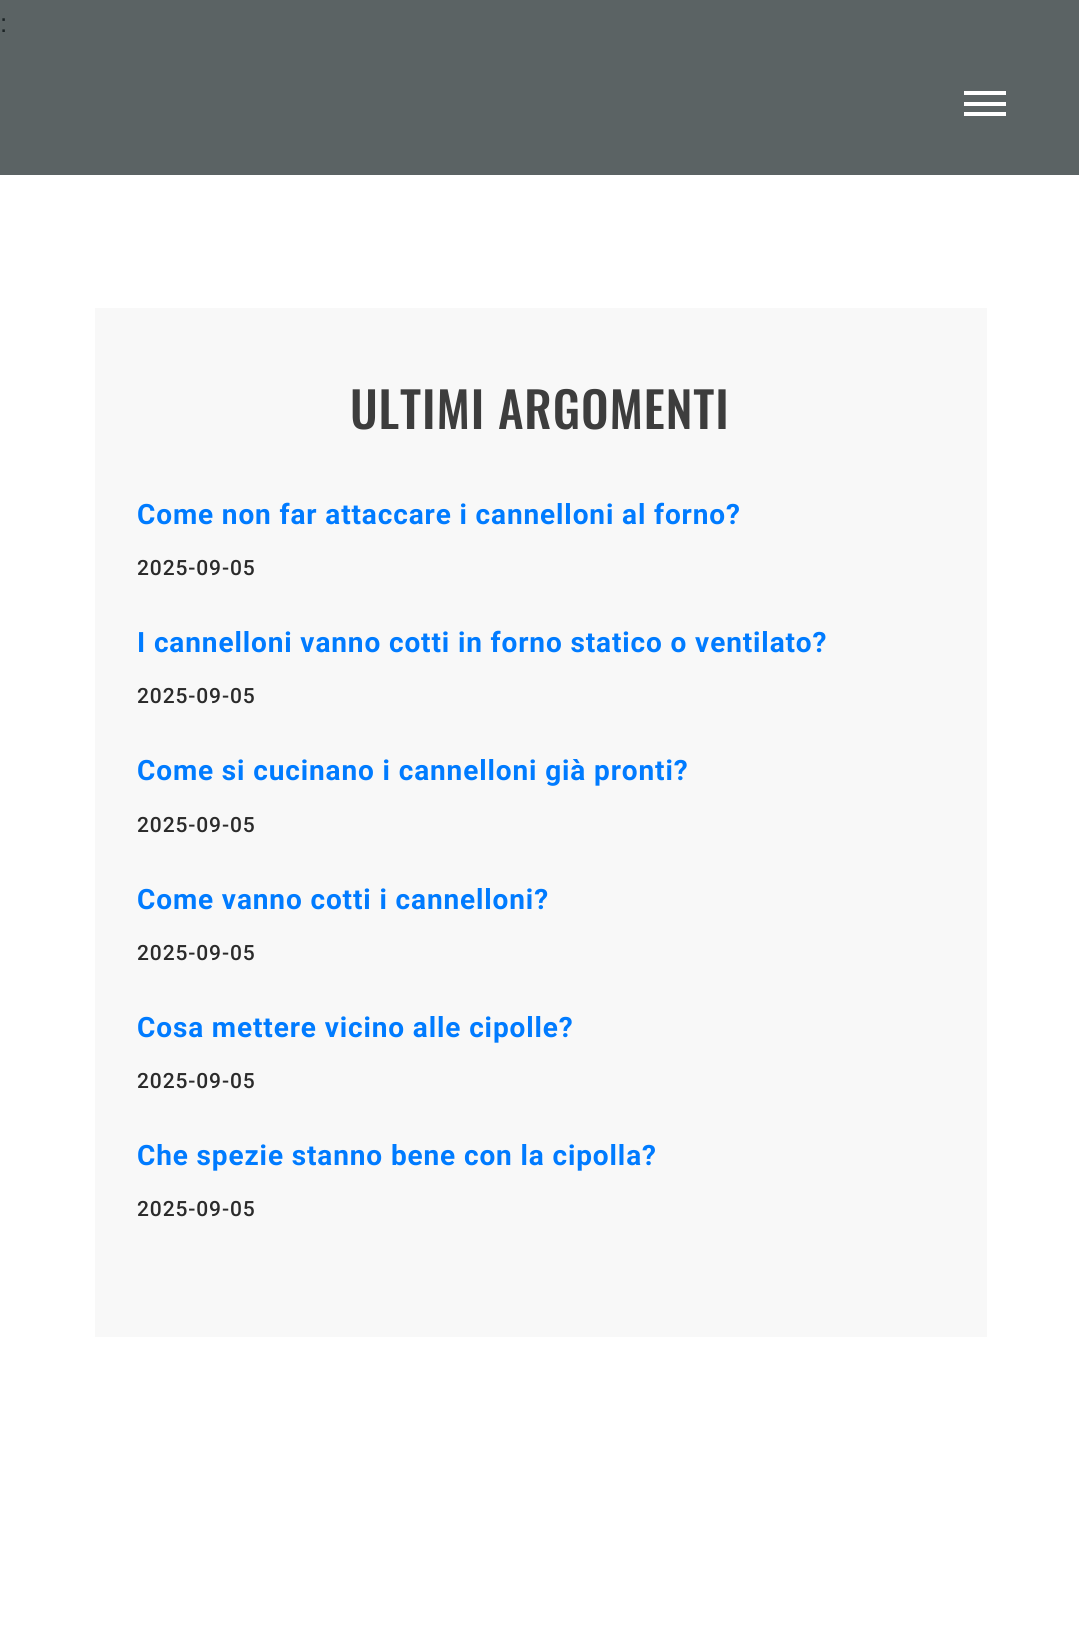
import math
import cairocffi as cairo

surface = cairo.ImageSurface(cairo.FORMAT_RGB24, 1079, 1628)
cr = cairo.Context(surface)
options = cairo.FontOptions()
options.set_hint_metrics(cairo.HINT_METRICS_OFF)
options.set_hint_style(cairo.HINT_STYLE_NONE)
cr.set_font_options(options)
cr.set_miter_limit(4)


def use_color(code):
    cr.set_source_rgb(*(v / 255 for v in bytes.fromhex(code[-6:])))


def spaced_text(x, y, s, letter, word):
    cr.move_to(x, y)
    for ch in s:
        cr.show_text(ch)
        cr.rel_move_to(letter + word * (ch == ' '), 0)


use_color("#ffffff")
cr.paint()
use_color("#5b6364")
cr.rectangle(0, 0, 1079, 175)
cr.fill()
cr.select_font_face("Liberation Sans")
cr.set_font_size(26)
use_color("#1b2325")
spaced_text(0, 32, ":", 0.88, 0)
use_color("#ffffff")
cr.rectangle(964, 91, 42, 4)
cr.fill()
cr.rectangle(964, 102, 42, 4)
cr.fill()
cr.rectangle(964, 112, 42, 4)
cr.fill()
use_color("#f8f8f8")
cr.rectangle(95, 308, 892, 1029)
cr.fill()
cr.select_font_face("Oswald Medium")
cr.set_font_size(49)
use_color("#3d3d3d")
spaced_text(350, 429, "ULTIMI ARGOMENTI", 0.88, 0)
cr.select_font_face("Roboto", cairo.FONT_SLANT_NORMAL, cairo.FONT_WEIGHT_BOLD)
cr.set_font_size(28)
use_color("#007bff")
spaced_text(137, 524, "Come non far attaccare i cannelloni al forno?", 0.88, 0)
cr.select_font_face("Roboto Medium")
cr.set_font_size(21)
use_color("#2b2b2b")
spaced_text(137, 575, "2025-09-05", 0.88, 0)
cr.select_font_face("Roboto", cairo.FONT_SLANT_NORMAL, cairo.FONT_WEIGHT_BOLD)
cr.set_font_size(28)
use_color("#007bff")
spaced_text(137, 652, "I cannelloni vanno cotti in forno statico o ventilato?", 0.88, 0)
cr.select_font_face("Roboto Medium")
cr.set_font_size(21)
use_color("#2b2b2b")
spaced_text(137, 703, "2025-09-05", 0.88, 0)
cr.select_font_face("Roboto", cairo.FONT_SLANT_NORMAL, cairo.FONT_WEIGHT_BOLD)
cr.set_font_size(28)
use_color("#007bff")
spaced_text(137, 780, "Come si cucinano i cannelloni già pronti?", 0.88, 0)
cr.select_font_face("Roboto Medium")
cr.set_font_size(21)
use_color("#2b2b2b")
spaced_text(137, 832, "2025-09-05", 0.88, 0)
cr.select_font_face("Roboto", cairo.FONT_SLANT_NORMAL, cairo.FONT_WEIGHT_BOLD)
cr.set_font_size(28)
use_color("#007bff")
spaced_text(137, 909, "Come vanno cotti i cannelloni?", 0.88, 0)
cr.select_font_face("Roboto Medium")
cr.set_font_size(21)
use_color("#2b2b2b")
spaced_text(137, 960, "2025-09-05", 0.88, 0)
cr.select_font_face("Roboto", cairo.FONT_SLANT_NORMAL, cairo.FONT_WEIGHT_BOLD)
cr.set_font_size(28)
use_color("#007bff")
spaced_text(137, 1037, "Cosa mettere vicino alle cipolle?", 0.88, 0)
cr.select_font_face("Roboto Medium")
cr.set_font_size(21)
use_color("#2b2b2b")
spaced_text(137, 1088, "2025-09-05", 0.88, 0)
cr.select_font_face("Roboto", cairo.FONT_SLANT_NORMAL, cairo.FONT_WEIGHT_BOLD)
cr.set_font_size(28)
use_color("#007bff")
spaced_text(137, 1165, "Che spezie stanno bene con la cipolla?", 0.88, 0)
cr.select_font_face("Roboto Medium")
cr.set_font_size(21)
use_color("#2b2b2b")
spaced_text(137, 1216, "2025-09-05", 0.88, 0)
surface.write_to_png("result.png")
